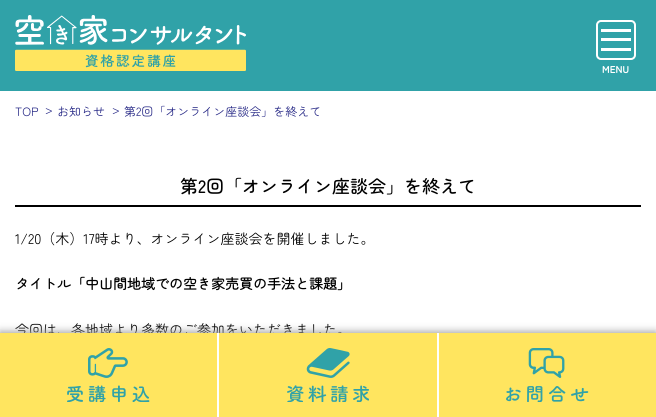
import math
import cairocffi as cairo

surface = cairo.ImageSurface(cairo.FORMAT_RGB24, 656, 417)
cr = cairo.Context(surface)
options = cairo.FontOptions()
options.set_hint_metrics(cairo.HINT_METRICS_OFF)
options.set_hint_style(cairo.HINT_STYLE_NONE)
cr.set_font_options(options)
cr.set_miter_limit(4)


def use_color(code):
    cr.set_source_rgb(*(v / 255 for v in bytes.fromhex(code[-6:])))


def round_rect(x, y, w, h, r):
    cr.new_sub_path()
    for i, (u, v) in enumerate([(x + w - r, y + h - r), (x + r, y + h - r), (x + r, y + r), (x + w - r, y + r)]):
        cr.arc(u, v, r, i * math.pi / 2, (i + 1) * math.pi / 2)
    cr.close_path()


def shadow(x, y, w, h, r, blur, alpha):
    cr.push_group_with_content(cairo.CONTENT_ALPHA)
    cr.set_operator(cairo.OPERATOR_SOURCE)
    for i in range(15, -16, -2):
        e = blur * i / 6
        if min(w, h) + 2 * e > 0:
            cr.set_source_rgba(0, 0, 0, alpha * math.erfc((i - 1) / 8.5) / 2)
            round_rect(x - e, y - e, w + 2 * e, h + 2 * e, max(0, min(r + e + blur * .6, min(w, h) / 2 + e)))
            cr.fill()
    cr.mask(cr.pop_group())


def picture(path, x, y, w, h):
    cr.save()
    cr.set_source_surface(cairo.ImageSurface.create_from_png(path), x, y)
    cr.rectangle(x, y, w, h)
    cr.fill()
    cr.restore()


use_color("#30a2a8")
cr.paint()
picture("img1.png", 15, 15, 231, 56)
round_rect(597, 21, 38, 38, 4)
use_color("#ffffff")
cr.stroke()
cr.rectangle(601, 29, 30, 3)
cr.fill()
cr.rectangle(601, 38, 30, 3)
cr.fill()
cr.rectangle(601, 48, 30, 3)
cr.fill()
cr.select_font_face("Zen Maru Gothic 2", cairo.FONT_SLANT_NORMAL, cairo.FONT_WEIGHT_BOLD)
cr.set_font_size(10)
cr.move_to(602, 73)
cr.show_text("MENU")
cr.rectangle(0, 91, 656, 242)
cr.fill()
cr.select_font_face("Zen Maru Gothic")
cr.set_font_size(12)
use_color("#232584")
cr.move_to(15, 116)
cr.show_text("TOP")
cr.move_to(45, 114)
cr.show_text(">")
cr.move_to(57, 116)
cr.show_text("お知らせ")
cr.move_to(112, 114)
cr.show_text(">")
cr.move_to(124, 116)
cr.show_text("第2回「オンライン座談会」を終えて")
use_color("#000000")
cr.rectangle(15, 205, 626, 2)
cr.fill()
cr.select_font_face("Zen Maru Gothic Medium")
cr.set_font_size(18)
cr.move_to(180, 193)
cr.show_text("第2回「オンライン座談会」を終えて")
cr.select_font_face("Zen Maru Gothic")
cr.set_font_size(14)
cr.move_to(15, 244)
cr.show_text("1/20（木）17時より、オンライン座談会を開催しました。")
cr.select_font_face("Zen Maru Gothic", cairo.FONT_SLANT_NORMAL, cairo.FONT_WEIGHT_BOLD)
cr.move_to(15, 289)
cr.show_text("タイトル「中山間地域での空き家売買の手法と課題」")
cr.select_font_face("Zen Maru Gothic")
cr.move_to(15, 335)
cr.show_text("今回は、各地域より多数のご参加をいただきました。")
use_color("#999999")
shadow(0, 332, 656, 84, 0, 4, 1)
use_color("#ffffff")
cr.rectangle(217, 333, 222, 84)
cr.fill()
use_color("#ffe55f")
cr.rectangle(0, 333, 217, 84)
cr.fill()
picture("img2.png", 67, 348, 83, 54)
cr.rectangle(219, 333, 218, 84)
cr.fill()
picture("img3.png", 287, 348, 82, 54)
cr.rectangle(439, 333, 217, 84)
cr.fill()
picture("img4.png", 506, 348, 83, 54)
surface.write_to_png("result.png")
